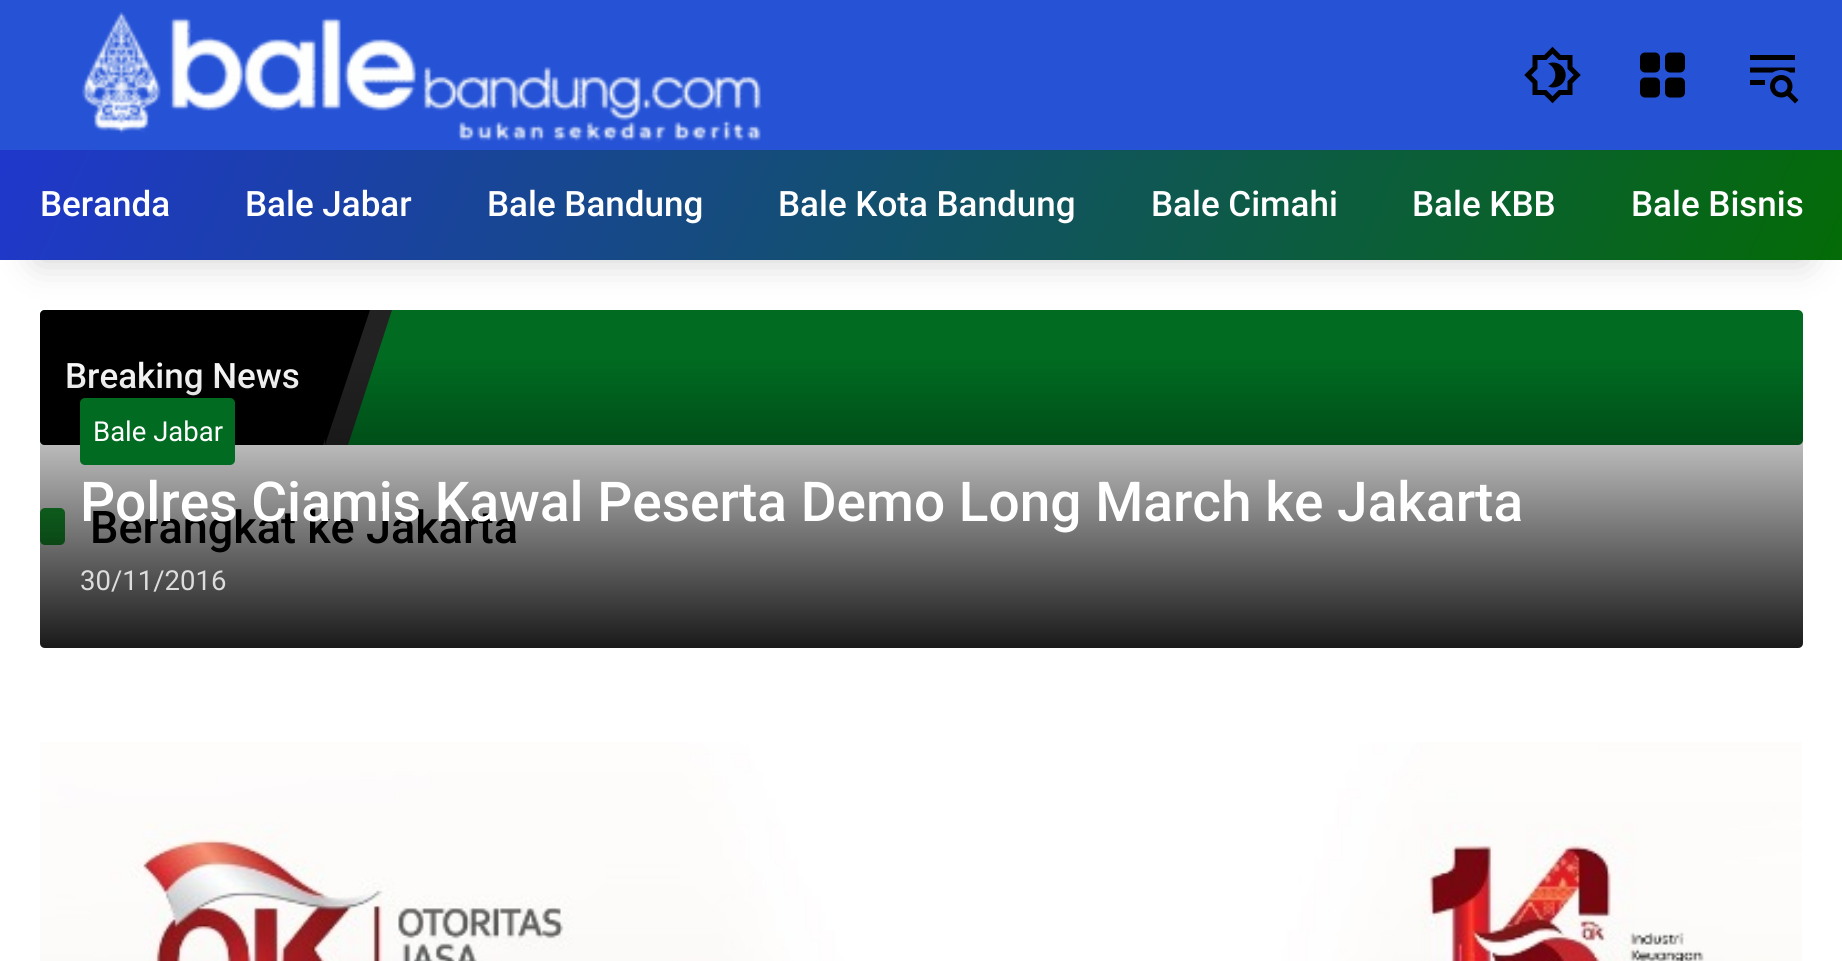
import math
import cairocffi as cairo

surface = cairo.ImageSurface(cairo.FORMAT_RGB24, 1842, 961)
cr = cairo.Context(surface)
options = cairo.FontOptions()
options.set_hint_metrics(cairo.HINT_METRICS_OFF)
options.set_hint_style(cairo.HINT_STYLE_NONE)
cr.set_font_options(options)
cr.set_miter_limit(4)


def use_color(code):
    cr.set_source_rgb(*(v / 255 for v in bytes.fromhex(code[-6:])))


def round_rect(x, y, w, h, r):
    cr.new_sub_path()
    for i, (u, v) in enumerate([(x + w - r, y + h - r), (x + r, y + h - r), (x + r, y + r), (x + w - r, y + r)]):
        cr.arc(u, v, r, i * math.pi / 2, (i + 1) * math.pi / 2)
    cr.close_path()


def shadow(x, y, w, h, r, blur, alpha):
    cr.push_group_with_content(cairo.CONTENT_ALPHA)
    cr.set_operator(cairo.OPERATOR_SOURCE)
    for i in range(15, -16, -2):
        e = blur * i / 6
        if min(w, h) + 2 * e > 0:
            cr.set_source_rgba(0, 0, 0, alpha * math.erfc((i - 1) / 8.5) / 2)
            round_rect(x - e, y - e, w + 2 * e, h + 2 * e, max(0, min(r + e + blur * .6, min(w, h) / 2 + e)))
            cr.fill()
    cr.mask(cr.pop_group())


def picture(path, x, y, w, h):
    cr.save()
    cr.set_source_surface(cairo.ImageSurface.create_from_png(path), x, y)
    cr.rectangle(x, y, w, h)
    cr.fill()
    cr.restore()


use_color("#ffffff")
cr.paint()
use_color("#2652d6")
cr.rectangle(0, 0, 1842, 150)
cr.fill()
picture("img1.png", 82, 12, 681, 131)
picture("img2.png", 1524, 46, 57, 58)
picture("img3.png", 1640, 52, 45, 46)
picture("img4.png", 1750, 55, 49, 49)
use_color("#006b21")
round_rect(40, 310, 1763, 135, 5)
cr.fill()
use_color("#000000")
cr.new_path()
cr.move_to(45, 310)
cr.line_to(325, 310)
cr.line_to(325, 445)
cr.line_to(45, 445)
cr.curve_to(42, 445, 40, 443, 40, 440)
cr.line_to(40, 315)
cr.curve_to(40, 312, 42, 310, 45, 310)
cr.close_path()
cr.fill()
use_color("#222222")
cr.new_path()
cr.move_to(367, 310)
cr.line_to(392, 310)
cr.line_to(348, 445)
cr.line_to(323, 445)
cr.close_path()
cr.fill()
use_color("#000000")
cr.new_path()
cr.move_to(325, 310)
cr.line_to(370, 310)
cr.line_to(325, 445)
cr.close_path()
cr.fill()
use_color("#000000")
shadow(38, 225, 1767, 35, 0, 19, 0.2)
gradient = cairo.LinearGradient(1711, 556, 132, -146)
gradient.add_color_stop_rgba(0, 0.016, 0.42, 0.027, 1)
gradient.add_color_stop_rgba(1, 0.125, 0.216, 0.8, 1)
cr.set_source(gradient)
cr.rectangle(0, 150, 1842, 110)
cr.fill()
cr.select_font_face("Roboto Medium")
cr.set_font_size(35)
use_color("#ffffff")
cr.move_to(40, 216)
cr.show_text("Beranda")
cr.move_to(245, 216)
cr.show_text("Bale Jabar")
cr.move_to(487, 216)
cr.show_text("Bale Bandung")
cr.move_to(778, 216)
cr.show_text("Bale Kota Bandung")
cr.move_to(1151, 216)
cr.show_text("Bale Cimahi")
cr.move_to(1412, 216)
cr.show_text("Bale KBB")
cr.move_to(1631, 216)
cr.show_text("Bale Bisnis")
cr.move_to(65, 388)
cr.show_text("Breaking News")
use_color("#19aa34")
round_rect(40, 508, 25, 37, 5)
cr.fill()
cr.set_font_size(45)
use_color("#000000")
cr.move_to(90, 543)
cr.show_text("Berangkat ke Jakarta")
gradient = cairo.LinearGradient(921, 648, 921, 358)
gradient.add_color_stop_rgba(0, 0, 0, 0, 0.9)
gradient.add_color_stop_rgba(1, 0, 0, 0, 0)
cr.set_source(gradient)
cr.new_path()
cr.move_to(40, 358)
cr.line_to(1803, 358)
cr.line_to(1803, 643)
cr.curve_to(1803, 646, 1801, 648, 1798, 648)
cr.line_to(45, 648)
cr.curve_to(42, 648, 40, 646, 40, 643)
cr.close_path()
cr.fill()
use_color("#006b21")
round_rect(80, 398, 155, 67, 5)
cr.fill()
cr.select_font_face("Roboto")
cr.set_font_size(27.5)
use_color("#ffffff")
cr.move_to(93, 441)
cr.show_text("Bale Jabar")
cr.select_font_face("Roboto Medium")
cr.set_font_size(55)
cr.move_to(80, 521)
cr.show_text("Polres Ciamis Kawal Peserta Demo Long March ke Jakarta")
cr.select_font_face("Roboto")
cr.set_font_size(27.5)
use_color("#dddddd")
cr.move_to(80, 590)
cr.show_text("30/11/2016")
picture("img5.png", 40, 742, 1762, 219)
surface.write_to_png("result.png")
